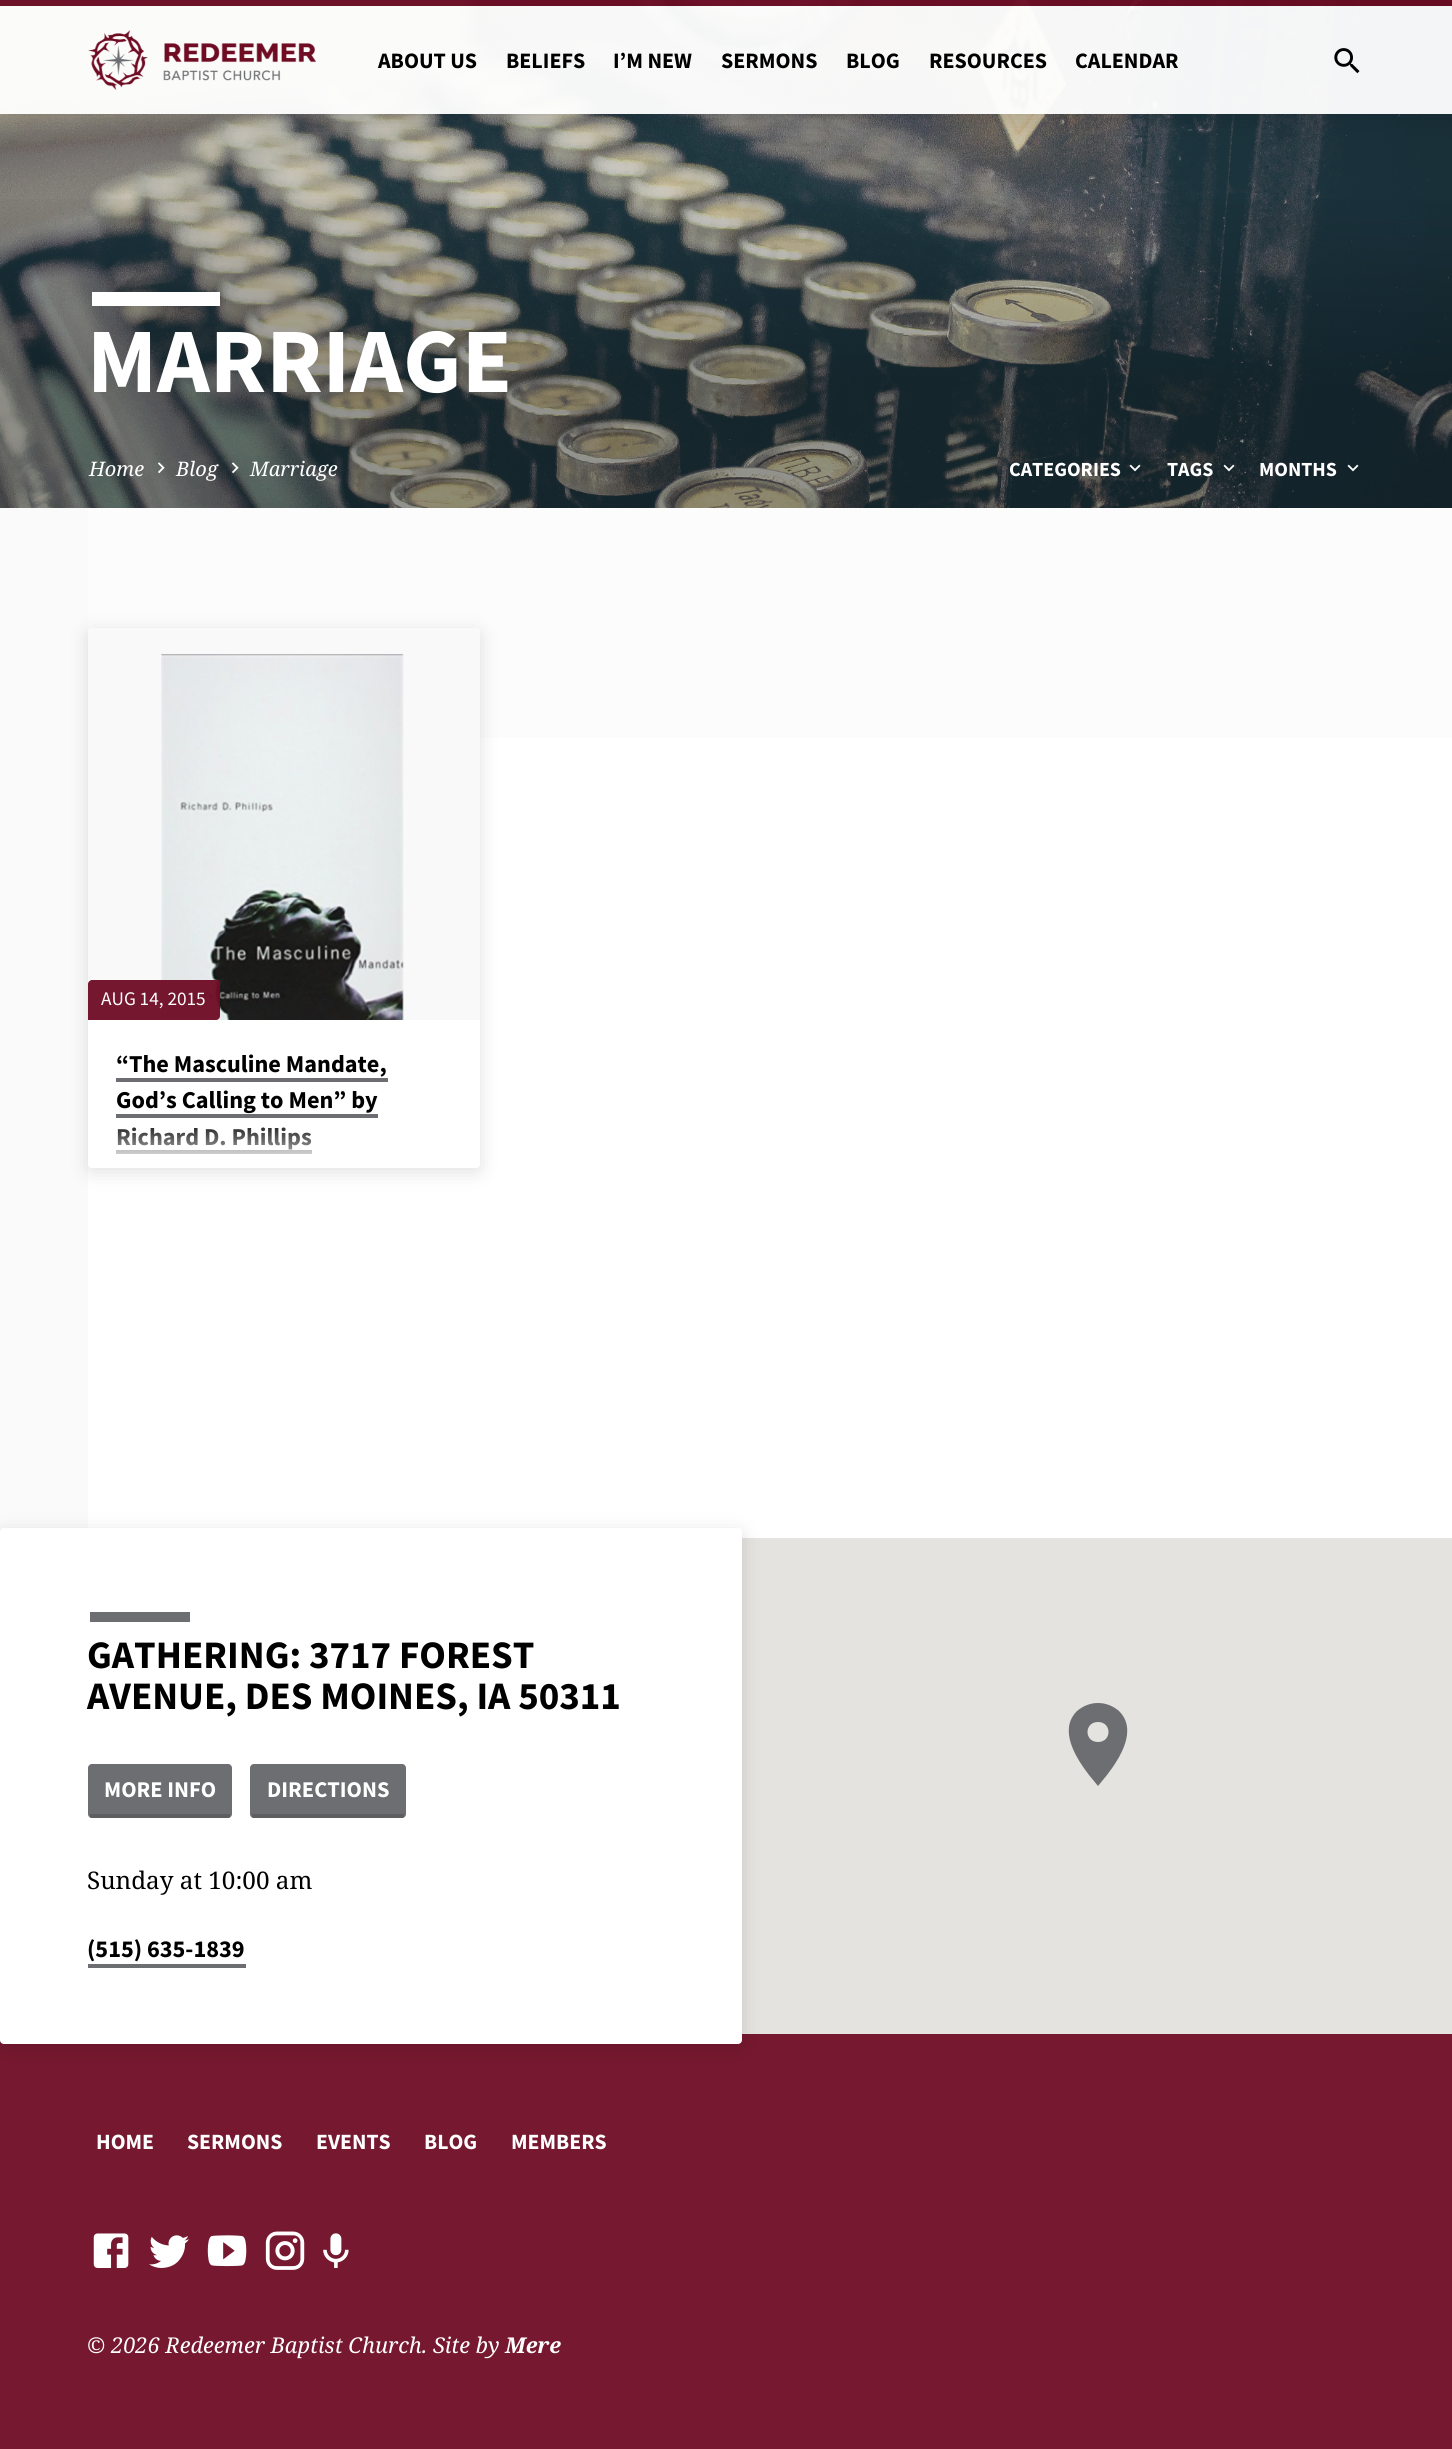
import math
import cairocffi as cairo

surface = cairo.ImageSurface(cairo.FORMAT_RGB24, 1452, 2449)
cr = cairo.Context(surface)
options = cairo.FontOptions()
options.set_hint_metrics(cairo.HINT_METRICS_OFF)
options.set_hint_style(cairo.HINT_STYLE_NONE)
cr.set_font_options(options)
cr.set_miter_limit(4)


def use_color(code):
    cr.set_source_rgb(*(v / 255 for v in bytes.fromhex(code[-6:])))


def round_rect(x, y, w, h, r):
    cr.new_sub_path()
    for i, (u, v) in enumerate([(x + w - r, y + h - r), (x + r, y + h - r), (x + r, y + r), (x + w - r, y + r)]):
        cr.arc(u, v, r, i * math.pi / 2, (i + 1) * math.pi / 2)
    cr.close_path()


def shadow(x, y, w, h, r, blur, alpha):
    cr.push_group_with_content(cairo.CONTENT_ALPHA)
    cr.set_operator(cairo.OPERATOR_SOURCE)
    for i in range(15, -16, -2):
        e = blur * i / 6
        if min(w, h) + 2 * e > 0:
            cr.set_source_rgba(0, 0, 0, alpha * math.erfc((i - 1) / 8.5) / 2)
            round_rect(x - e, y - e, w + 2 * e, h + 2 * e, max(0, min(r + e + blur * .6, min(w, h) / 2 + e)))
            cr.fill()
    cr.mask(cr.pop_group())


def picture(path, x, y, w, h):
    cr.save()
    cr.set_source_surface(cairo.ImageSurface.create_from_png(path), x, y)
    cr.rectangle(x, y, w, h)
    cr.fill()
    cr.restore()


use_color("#ffffff")
cr.paint()
picture("img3.png", 0, 0, 1452, 508)
cr.set_source_rgba(0.435, 0.047, 0.141, 0.95)
cr.rectangle(0, 0, 1452, 6)
cr.fill()
cr.save()
cr.set_fill_rule(cairo.FILL_RULE_EVEN_ODD)
cr.new_path()
cr.move_to(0, 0)
cr.line_to(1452, 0)
cr.line_to(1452, 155)
cr.line_to(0, 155)
cr.close_path()
cr.move_to(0, 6)
cr.line_to(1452, 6)
cr.line_to(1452, 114)
cr.line_to(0, 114)
cr.close_path()
cr.clip()
use_color("#000000")
shadow(0, 10, 1452, 108, 0, 12, 0.14)
cr.restore()
cr.set_source_rgba(1, 1, 1, 0.95)
cr.rectangle(0, 6, 1452, 108)
cr.fill()
picture("img1.png", 88, 30, 228, 60)
cr.select_font_face("Source Sans Pro", cairo.FONT_SLANT_NORMAL, cairo.FONT_WEIGHT_BOLD)
cr.set_font_size(22)
use_color("#000000")
cr.move_to(378, 68)
cr.show_text("ABOUT US")
cr.move_to(506, 68)
cr.show_text("BELIEFS")
cr.move_to(613, 68)
cr.show_text("I’M NEW")
cr.move_to(721, 68)
cr.show_text("SERMONS")
cr.move_to(846, 68)
cr.show_text("BLOG")
cr.move_to(929, 68)
cr.show_text("RESOURCES")
cr.move_to(1075, 68)
cr.show_text("CALENDAR")
picture("img2.png", 1334, 48, 26, 26)
gradient = cairo.LinearGradient(726, 0, 726, 508)
gradient.add_color_stop_rgba(0, 0, 0, 0, 0)
gradient.add_color_stop_rgba(0.36, 0, 0, 0, 0)
gradient.add_color_stop_rgba(0.76, 0, 0, 0, 0.28)
gradient.add_color_stop_rgba(1, 0, 0, 0, 0.28)
cr.set_source(gradient)
cr.rectangle(0, 199, 1452, 309)
cr.fill()
use_color("#ffffff")
cr.rectangle(92, 292, 128, 14)
cr.fill()
cr.set_font_size(92)
cr.move_to(87, 392)
cr.show_text("MARRIAGE")
cr.select_font_face("Noto Serif", cairo.FONT_SLANT_ITALIC)
cr.set_font_size(20)
cr.move_to(89, 476)
cr.show_text("Home")
picture("img4.png", 158, 462, 7, 12)
cr.move_to(176, 476)
cr.show_text("Blog")
picture("img5.png", 231, 462, 8, 12)
cr.move_to(250, 476)
cr.show_text("Marriage")
cr.select_font_face("Source Sans Pro", cairo.FONT_SLANT_NORMAL, cairo.FONT_WEIGHT_BOLD)
cr.move_to(1009, 476)
cr.show_text("CATEGORIES")
picture("img6.png", 1129, 464, 12, 8)
cr.move_to(1167, 476)
cr.show_text("TAGS")
picture("img7.png", 1223, 464, 12, 8)
cr.move_to(1259, 476)
cr.show_text("MONTHS")
picture("img8.png", 1347, 464, 12, 8)
use_color("#fafafa")
cr.rectangle(0, 508, 88, 1024)
cr.fill()
gradient = cairo.LinearGradient(814, 508, 814, 1538)
gradient.add_color_stop_rgba(0.19, 0.988, 0.988, 0.988, 1)
gradient.add_color_stop_rgba(0.39, 1, 1, 1, 1)
cr.set_source(gradient)
cr.rectangle(88, 508, 1364, 230)
cr.fill()
use_color("#000000")
shadow(88, 632, 392, 540, 4, 10, 0.12)
use_color("#ffffff")
round_rect(88, 628, 392, 540, 4)
cr.fill()
picture("img9.png", 88, 628, 392, 392)
cr.set_source_rgba(0.435, 0.047, 0.141, 0.95)
cr.new_path()
cr.move_to(92, 980)
cr.line_to(220, 980)
cr.line_to(220, 1016)
cr.curve_to(220, 1018, 218, 1020, 216, 1020)
cr.line_to(88, 1020)
cr.line_to(88, 984)
cr.curve_to(88, 982, 90, 980, 92, 980)
cr.close_path()
cr.fill()
cr.select_font_face("Source Sans Pro")
cr.set_font_size(19.25)
use_color("#ffffff")
cr.move_to(101, 1005)
cr.show_text("AUG 14, 2015")
cr.select_font_face("Source Sans Pro", cairo.FONT_SLANT_NORMAL, cairo.FONT_WEIGHT_BOLD)
cr.set_font_size(24.25)
use_color("#000000")
cr.move_to(116, 1072)
cr.show_text("“The Masculine Mandate,")
use_color("#6d6e71")
cr.rectangle(116, 1078, 272, 4)
cr.fill()
use_color("#000000")
cr.move_to(116, 1108)
cr.show_text("God’s Calling to Men” by")
use_color("#6d6e71")
cr.rectangle(116, 1114, 262, 4)
cr.fill()
use_color("#000000")
cr.move_to(116, 1145)
cr.show_text("Richard D. Phillips")
use_color("#6d6e71")
cr.rectangle(116, 1150, 196, 4)
cr.fill()
gradient = cairo.LinearGradient(284, 1118, 284, 1168)
gradient.add_color_stop_rgba(0, 1, 1, 1, 0)
gradient.add_color_stop_rgba(1, 1, 1, 1, 0.9)
cr.set_source(gradient)
cr.new_path()
cr.move_to(88, 1118)
cr.line_to(480, 1118)
cr.line_to(480, 1164)
cr.curve_to(480, 1166, 478, 1168, 476, 1168)
cr.line_to(92, 1168)
cr.curve_to(90, 1168, 88, 1166, 88, 1164)
cr.close_path()
cr.fill()
use_color("#e5e3df")
cr.rectangle(742, 1538, 710, 496)
cr.fill()
use_color("#76182f")
cr.rectangle(0, 2034, 1452, 415)
cr.fill()
use_color("#000000")
shadow(0, 1532, 742, 516, 4, 10, 0.12)
use_color("#ffffff")
round_rect(0, 1528, 742, 516, 4)
cr.fill()
use_color("#6d6e71")
cr.new_path()
cr.move_to(1098, 1742)
cr.curve_to(1084, 1742, 1084, 1722, 1098, 1722)
cr.curve_to(1112, 1722, 1112, 1742, 1098, 1742)
cr.close_path()
cr.move_to(1098, 1703)
cr.curve_to(1090, 1703, 1083, 1706, 1077, 1711)
cr.curve_to(1058, 1730, 1076, 1758, 1089, 1775)
cr.line_to(1098, 1786)
cr.line_to(1107, 1775)
cr.curve_to(1120, 1758, 1138, 1730, 1119, 1711)
cr.curve_to(1113, 1706, 1106, 1703, 1098, 1703)
cr.close_path()
cr.fill()
cr.rectangle(90, 1612, 100, 10)
cr.fill()
cr.set_font_size(38.9)
use_color("#000000")
cr.move_to(87, 1668)
cr.show_text("GATHERING: 3717 FOREST")
cr.move_to(87, 1709)
cr.show_text("AVENUE, DES MOINES, IA 50311")
use_color("#6d6e71")
round_rect(88, 1764, 144, 54, 4)
cr.fill()
cr.set_source_rgba(0.196, 0.196, 0.196, 0.25)
cr.rectangle(90, 1814, 140, 4)
cr.fill()
cr.set_font_size(22.5)
use_color("#ffffff")
cr.move_to(104, 1797)
cr.show_text("MORE INFO")
use_color("#6d6e71")
round_rect(250, 1764, 156, 54, 4)
cr.fill()
cr.set_source_rgba(0.196, 0.196, 0.196, 0.25)
cr.rectangle(252, 1814, 152, 4)
cr.fill()
use_color("#ffffff")
cr.move_to(267, 1797)
cr.show_text("DIRECTIONS")
cr.select_font_face("Noto Serif")
cr.set_font_size(24.25)
use_color("#000000")
cr.move_to(87, 1889)
cr.show_text("Sunday at 10:00 am")
cr.select_font_face("Source Sans Pro", cairo.FONT_SLANT_NORMAL, cairo.FONT_WEIGHT_BOLD)
cr.move_to(87, 1957)
cr.show_text("(515) 635-1839")
use_color("#6d6e71")
cr.rectangle(88, 1964, 158, 4)
cr.fill()
cr.set_font_size(21.75)
use_color("#ffffff")
cr.move_to(96, 2149)
cr.show_text("HOME")
cr.move_to(187, 2149)
cr.show_text("SERMONS")
cr.move_to(316, 2149)
cr.show_text("EVENTS")
cr.move_to(424, 2149)
cr.show_text("BLOG")
cr.move_to(511, 2149)
cr.show_text("MEMBERS")
picture("img10.png", 93, 2233, 36, 35)
picture("img11.png", 149, 2235, 40, 33)
picture("img12.png", 207, 2235, 40, 32)
picture("img13.png", 265, 2231, 40, 39)
picture("img14.png", 323, 2233, 26, 35)
cr.select_font_face("Noto Serif", cairo.FONT_SLANT_ITALIC)
cr.move_to(87, 2353)
cr.show_text("© 2026 Redeemer Baptist Church. Site by")
cr.select_font_face("Noto Serif", cairo.FONT_SLANT_ITALIC, cairo.FONT_WEIGHT_BOLD)
cr.move_to(505, 2353)
cr.show_text("Mere")
surface.write_to_png("result.png")
